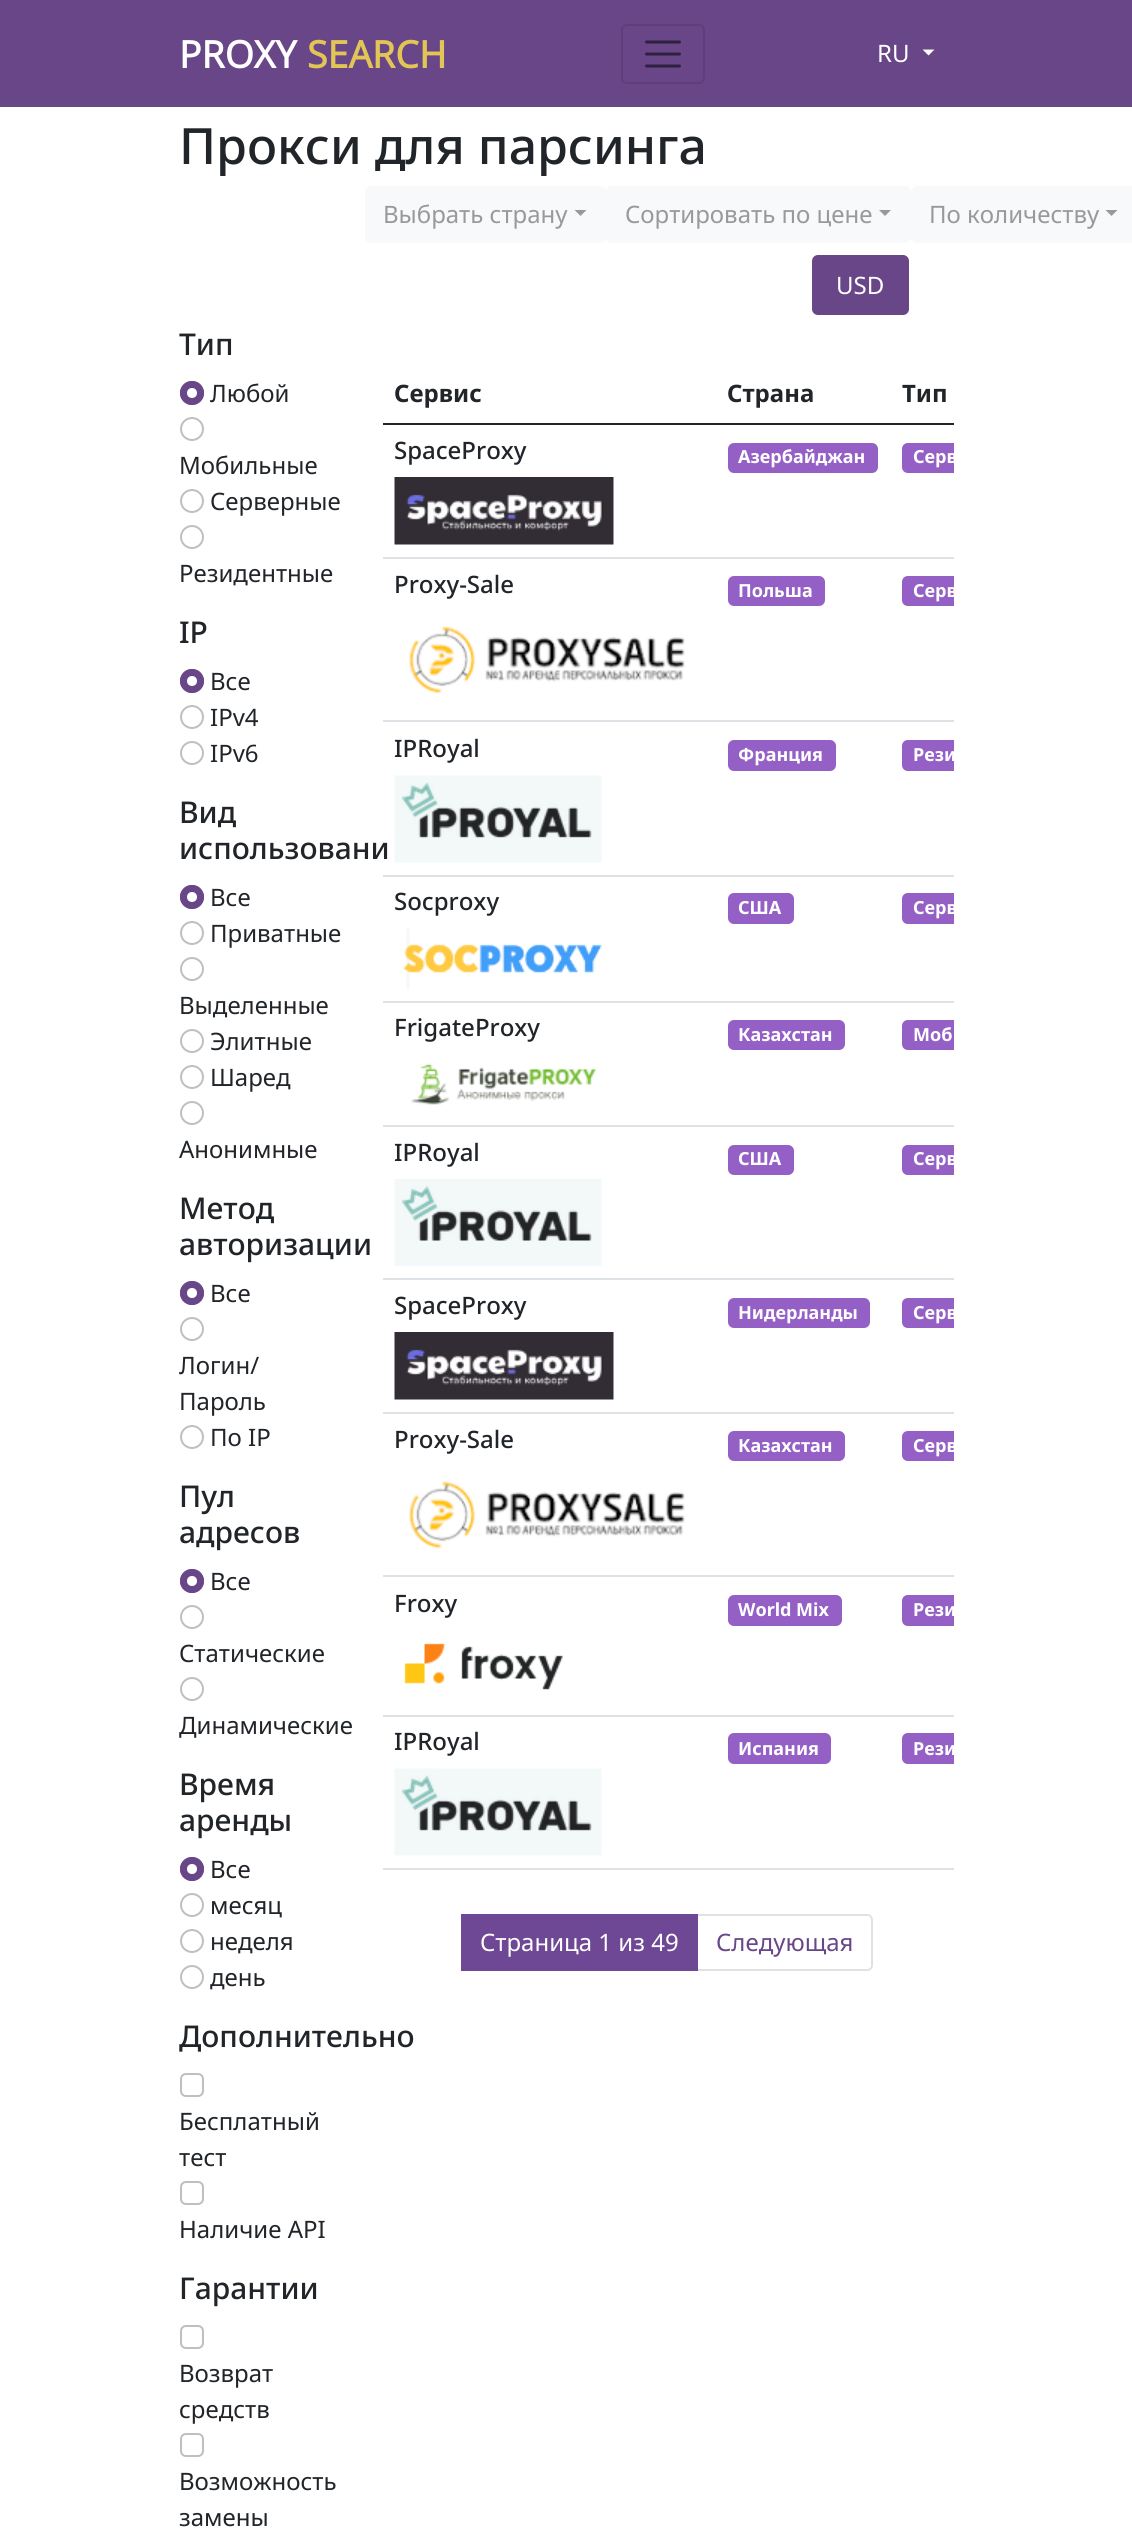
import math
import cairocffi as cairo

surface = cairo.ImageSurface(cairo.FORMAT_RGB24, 1132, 2534)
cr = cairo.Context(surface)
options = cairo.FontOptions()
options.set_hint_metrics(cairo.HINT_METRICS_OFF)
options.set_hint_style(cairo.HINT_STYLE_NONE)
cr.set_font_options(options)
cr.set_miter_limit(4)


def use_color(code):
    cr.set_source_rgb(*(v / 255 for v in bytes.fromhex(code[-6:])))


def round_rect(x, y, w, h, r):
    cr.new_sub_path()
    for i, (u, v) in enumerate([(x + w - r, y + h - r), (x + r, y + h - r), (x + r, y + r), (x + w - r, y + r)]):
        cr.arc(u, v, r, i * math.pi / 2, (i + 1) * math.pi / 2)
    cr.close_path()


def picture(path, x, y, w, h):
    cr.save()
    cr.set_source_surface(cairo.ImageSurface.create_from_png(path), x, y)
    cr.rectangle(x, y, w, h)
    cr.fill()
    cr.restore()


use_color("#ffffff")
cr.paint()
use_color("#684687")
cr.rectangle(0, 0, 1132, 107)
cr.fill()
cr.select_font_face("Open Sans", cairo.FONT_SLANT_NORMAL, cairo.FONT_WEIGHT_BOLD)
cr.set_font_size(37.5)
use_color("#ffffff")
cr.move_to(179, 68)
cr.show_text("PROXY")
use_color("#e3c556")
cr.move_to(307, 68)
cr.show_text("SEARCH")
round_rect(622, 25, 82, 58, 5)
use_color("#5e3f7a")
cr.stroke()
cr.new_path()
cr.move_to(646.5, 42)
cr.line_to(679.5, 42)
cr.move_to(646.5, 54)
cr.line_to(679.5, 54)
cr.move_to(646.5, 66)
cr.line_to(679.5, 66)
use_color("#2f203d")
cr.set_line_width(3)
cr.set_line_cap(cairo.LINE_CAP_ROUND)
cr.stroke()
cr.select_font_face("Noto Sans")
cr.set_font_size(24)
use_color("#ffffff")
cr.move_to(877, 62)
cr.show_text("RU")
cr.new_path()
cr.move_to(922.5, 49.5)
cr.line_to(934.5, 49.5)
cr.line_to(928.5, 55.5)
cr.close_path()
cr.fill()
cr.select_font_face("Noto Sans Medium")
cr.set_font_size(50)
use_color("#212529")
cr.move_to(179, 164)
cr.show_text("Прокси для парсинга")
use_color("#f8f9fa")
round_rect(365, 186, 241, 57, 6)
cr.fill()
cr.select_font_face("Noto Sans")
cr.set_font_size(24)
use_color("#999999")
cr.move_to(383, 223)
cr.show_text("Выбрать страну")
cr.new_path()
cr.move_to(574.5, 210)
cr.line_to(586.5, 210)
cr.line_to(580.5, 216)
cr.close_path()
cr.fill()
use_color("#f8f9fa")
round_rect(606, 186, 305, 57, 6)
cr.fill()
use_color("#999999")
cr.move_to(625, 223)
cr.show_text("Сортировать по цене")
cr.new_path()
cr.move_to(879, 210)
cr.line_to(891, 210)
cr.line_to(885, 216)
cr.close_path()
cr.fill()
use_color("#f8f9fa")
round_rect(911, 186, 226, 57, 6)
cr.fill()
use_color("#999999")
cr.move_to(929, 223)
cr.show_text("По количеству")
cr.new_path()
cr.move_to(1105.5, 210)
cr.line_to(1117.5, 210)
cr.line_to(1111.5, 216)
cr.close_path()
cr.fill()
use_color("#684687")
round_rect(812, 255, 97, 60, 6)
cr.fill()
use_color("#ffffff")
cr.move_to(836, 294)
cr.show_text("USD")
cr.select_font_face("Noto Sans Medium")
cr.set_font_size(30)
use_color("#212529")
cr.move_to(179, 355)
cr.show_text("Тип")
use_color("#684687")
cr.new_path()
cr.arc(192, 393, 12, 0, 2 * math.pi)
cr.fill()
use_color("#ffffff")
cr.arc(192, 393, 5, 0, 2 * math.pi)
cr.fill()
cr.arc(192, 393, 11, 0, 2 * math.pi)
use_color("#684687")
cr.set_line_width(2)
cr.set_line_cap(cairo.LINE_CAP_BUTT)
cr.stroke()
cr.select_font_face("Noto Sans")
cr.set_font_size(24)
use_color("#212529")
cr.move_to(210, 402)
cr.show_text("Любой")
cr.new_path()
cr.arc(192, 429, 11, 0, 2 * math.pi)
use_color("#bfbfbf")
cr.stroke()
use_color("#212529")
cr.move_to(179, 474)
cr.show_text("Мобильные")
cr.new_path()
cr.arc(192, 501, 11, 0, 2 * math.pi)
use_color("#bfbfbf")
cr.stroke()
use_color("#212529")
cr.move_to(210, 510)
cr.show_text("Серверные")
cr.new_path()
cr.arc(192, 537, 11, 0, 2 * math.pi)
use_color("#bfbfbf")
cr.stroke()
use_color("#212529")
cr.move_to(179, 582)
cr.show_text("Резидентные")
cr.select_font_face("Noto Sans Medium")
cr.set_font_size(30)
cr.move_to(179, 643)
cr.show_text("IP")
use_color("#684687")
cr.new_path()
cr.arc(192, 681, 12, 0, 2 * math.pi)
cr.fill()
use_color("#ffffff")
cr.arc(192, 681, 5, 0, 2 * math.pi)
cr.fill()
cr.arc(192, 681, 11, 0, 2 * math.pi)
use_color("#684687")
cr.stroke()
cr.select_font_face("Noto Sans")
cr.set_font_size(24)
use_color("#212529")
cr.move_to(210, 690)
cr.show_text("Все")
cr.new_path()
cr.arc(192, 717, 11, 0, 2 * math.pi)
use_color("#bfbfbf")
cr.stroke()
use_color("#212529")
cr.move_to(210, 726)
cr.show_text("IPv4")
cr.new_path()
cr.arc(192, 753, 11, 0, 2 * math.pi)
use_color("#bfbfbf")
cr.stroke()
use_color("#212529")
cr.move_to(210, 762)
cr.show_text("IPv6")
cr.select_font_face("Noto Sans Medium")
cr.set_font_size(30)
cr.move_to(179, 823)
cr.show_text("Вид")
cr.move_to(179, 859)
cr.show_text("использовани")
use_color("#684687")
cr.new_path()
cr.arc(192, 897, 12, 0, 2 * math.pi)
cr.fill()
use_color("#ffffff")
cr.arc(192, 897, 5, 0, 2 * math.pi)
cr.fill()
cr.arc(192, 897, 11, 0, 2 * math.pi)
use_color("#684687")
cr.stroke()
cr.select_font_face("Noto Sans")
cr.set_font_size(24)
use_color("#212529")
cr.move_to(210, 906)
cr.show_text("Все")
cr.new_path()
cr.arc(192, 933, 11, 0, 2 * math.pi)
use_color("#bfbfbf")
cr.stroke()
use_color("#212529")
cr.move_to(210, 942)
cr.show_text("Приватные")
cr.new_path()
cr.arc(192, 969, 11, 0, 2 * math.pi)
use_color("#bfbfbf")
cr.stroke()
use_color("#212529")
cr.move_to(179, 1014)
cr.show_text("Выделенные")
cr.new_path()
cr.arc(192, 1041, 11, 0, 2 * math.pi)
use_color("#bfbfbf")
cr.stroke()
use_color("#212529")
cr.move_to(210, 1050)
cr.show_text("Элитные")
cr.new_path()
cr.arc(192, 1077, 11, 0, 2 * math.pi)
use_color("#bfbfbf")
cr.stroke()
use_color("#212529")
cr.move_to(210, 1086)
cr.show_text("Шаред")
cr.new_path()
cr.arc(192, 1113, 11, 0, 2 * math.pi)
use_color("#bfbfbf")
cr.stroke()
use_color("#212529")
cr.move_to(179, 1158)
cr.show_text("Анонимные")
cr.select_font_face("Noto Sans Medium")
cr.set_font_size(30)
cr.move_to(179, 1219)
cr.show_text("Метод")
cr.move_to(179, 1255)
cr.show_text("авторизации")
use_color("#684687")
cr.new_path()
cr.arc(192, 1293, 12, 0, 2 * math.pi)
cr.fill()
use_color("#ffffff")
cr.arc(192, 1293, 5, 0, 2 * math.pi)
cr.fill()
cr.arc(192, 1293, 11, 0, 2 * math.pi)
use_color("#684687")
cr.stroke()
cr.select_font_face("Noto Sans")
cr.set_font_size(24)
use_color("#212529")
cr.move_to(210, 1302)
cr.show_text("Все")
cr.new_path()
cr.arc(192, 1329, 11, 0, 2 * math.pi)
use_color("#bfbfbf")
cr.stroke()
use_color("#212529")
cr.move_to(179, 1374)
cr.show_text("Логин/")
cr.move_to(179, 1410)
cr.show_text("Пароль")
cr.new_path()
cr.arc(192, 1437, 11, 0, 2 * math.pi)
use_color("#bfbfbf")
cr.stroke()
use_color("#212529")
cr.move_to(210, 1446)
cr.show_text("По IP")
cr.select_font_face("Noto Sans Medium")
cr.set_font_size(30)
cr.move_to(179, 1507)
cr.show_text("Пул")
cr.move_to(179, 1543)
cr.show_text("адресов")
use_color("#684687")
cr.new_path()
cr.arc(192, 1581, 12, 0, 2 * math.pi)
cr.fill()
use_color("#ffffff")
cr.arc(192, 1581, 5, 0, 2 * math.pi)
cr.fill()
cr.arc(192, 1581, 11, 0, 2 * math.pi)
use_color("#684687")
cr.stroke()
cr.select_font_face("Noto Sans")
cr.set_font_size(24)
use_color("#212529")
cr.move_to(210, 1590)
cr.show_text("Все")
cr.new_path()
cr.arc(192, 1617, 11, 0, 2 * math.pi)
use_color("#bfbfbf")
cr.stroke()
use_color("#212529")
cr.move_to(179, 1662)
cr.show_text("Статические")
cr.new_path()
cr.arc(192, 1689, 11, 0, 2 * math.pi)
use_color("#bfbfbf")
cr.stroke()
use_color("#212529")
cr.move_to(179, 1734)
cr.show_text("Динамические")
cr.select_font_face("Noto Sans Medium")
cr.set_font_size(30)
cr.move_to(179, 1795)
cr.show_text("Время")
cr.move_to(179, 1831)
cr.show_text("аренды")
use_color("#684687")
cr.new_path()
cr.arc(192, 1869, 12, 0, 2 * math.pi)
cr.fill()
use_color("#ffffff")
cr.arc(192, 1869, 5, 0, 2 * math.pi)
cr.fill()
cr.arc(192, 1869, 11, 0, 2 * math.pi)
use_color("#684687")
cr.stroke()
cr.select_font_face("Noto Sans")
cr.set_font_size(24)
use_color("#212529")
cr.move_to(210, 1878)
cr.show_text("Все")
cr.new_path()
cr.arc(192, 1905, 11, 0, 2 * math.pi)
use_color("#bfbfbf")
cr.stroke()
use_color("#212529")
cr.move_to(210, 1914)
cr.show_text("месяц")
cr.new_path()
cr.arc(192, 1941, 11, 0, 2 * math.pi)
use_color("#bfbfbf")
cr.stroke()
use_color("#212529")
cr.move_to(210, 1950)
cr.show_text("неделя")
cr.new_path()
cr.arc(192, 1977, 11, 0, 2 * math.pi)
use_color("#bfbfbf")
cr.stroke()
use_color("#212529")
cr.move_to(210, 1986)
cr.show_text("день")
cr.select_font_face("Noto Sans Medium")
cr.set_font_size(30)
cr.move_to(179, 2047)
cr.show_text("Дополнительно")
round_rect(181, 2074, 22, 22, 5)
use_color("#bfbfbf")
cr.stroke()
cr.select_font_face("Noto Sans")
cr.set_font_size(24)
use_color("#212529")
cr.move_to(179, 2130)
cr.show_text("Бесплатный")
cr.move_to(179, 2166)
cr.show_text("тест")
round_rect(181, 2182, 22, 22, 5)
use_color("#bfbfbf")
cr.stroke()
use_color("#212529")
cr.move_to(179, 2238)
cr.show_text("Наличие API")
cr.select_font_face("Noto Sans Medium")
cr.set_font_size(30)
cr.move_to(179, 2299)
cr.show_text("Гарантии")
round_rect(181, 2326, 22, 22, 5)
use_color("#bfbfbf")
cr.stroke()
cr.select_font_face("Noto Sans")
cr.set_font_size(24)
use_color("#212529")
cr.move_to(179, 2382)
cr.show_text("Возврат")
cr.move_to(179, 2418)
cr.show_text("средств")
round_rect(181, 2434, 22, 22, 5)
use_color("#bfbfbf")
cr.stroke()
use_color("#212529")
cr.move_to(179, 2490)
cr.show_text("Возможность")
cr.move_to(179, 2526)
cr.show_text("замены")
cr.select_font_face("Noto Sans", cairo.FONT_SLANT_NORMAL, cairo.FONT_WEIGHT_BOLD)
cr.move_to(394, 402)
cr.show_text("Сервис")
cr.move_to(727, 402)
cr.show_text("Страна")
cr.rectangle(383, 423, 571, 2)
cr.fill()
cr.move_to(902, 402)
cr.show_text("Тип")
cr.select_font_face("Noto Sans Medium")
cr.move_to(394, 459)
cr.show_text("SpaceProxy")
picture("img1.png", 394, 477, 220, 68)
use_color("#9560c6")
round_rect(728, 443, 150, 30, 6)
cr.fill()
cr.select_font_face("Noto Sans", cairo.FONT_SLANT_NORMAL, cairo.FONT_WEIGHT_BOLD)
cr.set_font_size(18)
use_color("#ffffff")
cr.move_to(738, 463)
cr.show_text("Азербайджан")
use_color("#dee2e6")
cr.rectangle(383, 557, 571, 2)
cr.fill()
use_color("#9560c6")
cr.new_path()
cr.move_to(908, 443)
cr.line_to(954, 443)
cr.line_to(954, 473)
cr.line_to(908, 473)
cr.curve_to(904.5, 473, 902, 470.5, 902, 467)
cr.line_to(902, 449)
cr.curve_to(902, 445.5, 904.5, 443, 908, 443)
cr.close_path()
cr.fill()
cr.save()
cr.rectangle(383, 327, 571, 1668)
cr.clip()
use_color("#ffffff")
cr.move_to(913, 463)
cr.show_text("Серв")
cr.restore()
cr.select_font_face("Noto Sans Medium")
cr.set_font_size(24)
use_color("#212529")
cr.move_to(394, 593)
cr.show_text("Proxy-Sale")
picture("img2.png", 409, 626, 276, 68)
use_color("#9560c6")
round_rect(728, 576, 97, 30, 6)
cr.fill()
cr.select_font_face("Noto Sans", cairo.FONT_SLANT_NORMAL, cairo.FONT_WEIGHT_BOLD)
cr.set_font_size(18)
use_color("#ffffff")
cr.move_to(738, 597)
cr.show_text("Польша")
use_color("#dee2e6")
cr.rectangle(383, 720, 571, 2)
cr.fill()
use_color("#9560c6")
cr.new_path()
cr.move_to(908, 576)
cr.line_to(954, 576)
cr.line_to(954, 606)
cr.line_to(908, 606)
cr.curve_to(904.5, 606, 902, 603.5, 902, 600)
cr.line_to(902, 582)
cr.curve_to(902, 578.5, 904.5, 576, 908, 576)
cr.close_path()
cr.fill()
cr.save()
cr.rectangle(383, 327, 571, 1668)
cr.clip()
use_color("#ffffff")
cr.move_to(913, 597)
cr.show_text("Серв")
cr.restore()
cr.select_font_face("Noto Sans Medium")
cr.set_font_size(24)
use_color("#212529")
cr.move_to(394, 757)
cr.show_text("IPRoyal")
picture("img3.png", 394, 775, 208, 88)
use_color("#9560c6")
round_rect(728, 740, 108, 31, 6)
cr.fill()
cr.select_font_face("Noto Sans", cairo.FONT_SLANT_NORMAL, cairo.FONT_WEIGHT_BOLD)
cr.set_font_size(18)
use_color("#ffffff")
cr.move_to(738, 761)
cr.show_text("Франция")
use_color("#dee2e6")
cr.rectangle(383, 875, 571, 2)
cr.fill()
use_color("#9560c6")
cr.new_path()
cr.move_to(908, 740)
cr.line_to(954, 740)
cr.line_to(954, 771)
cr.line_to(908, 771)
cr.curve_to(904.5, 771, 902, 768.5, 902, 765)
cr.line_to(902, 746)
cr.curve_to(902, 742.5, 904.5, 740, 908, 740)
cr.close_path()
cr.fill()
cr.save()
cr.rectangle(383, 327, 571, 1668)
cr.clip()
use_color("#ffffff")
cr.move_to(913, 761)
cr.show_text("Рези")
cr.restore()
cr.select_font_face("Noto Sans Medium")
cr.set_font_size(24)
use_color("#212529")
cr.move_to(394, 910)
cr.show_text("Socproxy")
picture("img4.png", 403, 928, 199, 61)
use_color("#9560c6")
round_rect(728, 893, 66, 31, 6)
cr.fill()
cr.select_font_face("Noto Sans", cairo.FONT_SLANT_NORMAL, cairo.FONT_WEIGHT_BOLD)
cr.set_font_size(18)
use_color("#ffffff")
cr.move_to(738, 914)
cr.show_text("США")
use_color("#dee2e6")
cr.rectangle(383, 1001, 571, 2)
cr.fill()
use_color("#9560c6")
cr.new_path()
cr.move_to(908, 893)
cr.line_to(954, 893)
cr.line_to(954, 924)
cr.line_to(908, 924)
cr.curve_to(904.5, 924, 902, 921.5, 902, 918)
cr.line_to(902, 899)
cr.curve_to(902, 895.5, 904.5, 893, 908, 893)
cr.close_path()
cr.fill()
cr.save()
cr.rectangle(383, 327, 571, 1668)
cr.clip()
use_color("#ffffff")
cr.move_to(913, 914)
cr.show_text("Серв")
cr.restore()
cr.select_font_face("Noto Sans Medium")
cr.set_font_size(24)
use_color("#212529")
cr.move_to(394, 1036)
cr.show_text("FrigateProxy")
picture("img5.png", 411, 1063, 185, 42)
use_color("#9560c6")
round_rect(728, 1020, 117, 30, 6)
cr.fill()
cr.select_font_face("Noto Sans", cairo.FONT_SLANT_NORMAL, cairo.FONT_WEIGHT_BOLD)
cr.set_font_size(18)
use_color("#ffffff")
cr.move_to(738, 1041)
cr.show_text("Казахстан")
use_color("#dee2e6")
cr.rectangle(383, 1125, 571, 2)
cr.fill()
use_color("#9560c6")
cr.new_path()
cr.move_to(908, 1020)
cr.line_to(954, 1020)
cr.line_to(954, 1050)
cr.line_to(908, 1050)
cr.curve_to(904.5, 1050, 902, 1047.5, 902, 1044)
cr.line_to(902, 1026)
cr.curve_to(902, 1022.5, 904.5, 1020, 908, 1020)
cr.close_path()
cr.fill()
use_color("#ffffff")
cr.move_to(913, 1041)
cr.show_text("Моб")
cr.select_font_face("Noto Sans Medium")
cr.set_font_size(24)
use_color("#212529")
cr.move_to(394, 1161)
cr.show_text("IPRoyal")
picture("img6.png", 394, 1179, 208, 87)
use_color("#9560c6")
round_rect(728, 1145, 66, 30, 6)
cr.fill()
cr.select_font_face("Noto Sans", cairo.FONT_SLANT_NORMAL, cairo.FONT_WEIGHT_BOLD)
cr.set_font_size(18)
use_color("#ffffff")
cr.move_to(738, 1165)
cr.show_text("США")
use_color("#dee2e6")
cr.rectangle(383, 1278, 571, 2)
cr.fill()
use_color("#9560c6")
cr.new_path()
cr.move_to(908, 1145)
cr.line_to(954, 1145)
cr.line_to(954, 1175)
cr.line_to(908, 1175)
cr.curve_to(904.5, 1175, 902, 1172.5, 902, 1169)
cr.line_to(902, 1151)
cr.curve_to(902, 1147.5, 904.5, 1145, 908, 1145)
cr.close_path()
cr.fill()
cr.save()
cr.rectangle(383, 327, 571, 1668)
cr.clip()
use_color("#ffffff")
cr.move_to(913, 1165)
cr.show_text("Серв")
cr.restore()
cr.select_font_face("Noto Sans Medium")
cr.set_font_size(24)
use_color("#212529")
cr.move_to(394, 1314)
cr.show_text("SpaceProxy")
picture("img1.png", 394, 1332, 220, 68)
use_color("#9560c6")
round_rect(728, 1298, 142, 30, 6)
cr.fill()
cr.select_font_face("Noto Sans", cairo.FONT_SLANT_NORMAL, cairo.FONT_WEIGHT_BOLD)
cr.set_font_size(18)
use_color("#ffffff")
cr.move_to(738, 1319)
cr.show_text("Нидерланды")
use_color("#dee2e6")
cr.rectangle(383, 1412, 571, 2)
cr.fill()
use_color("#9560c6")
cr.new_path()
cr.move_to(908, 1298)
cr.line_to(954, 1298)
cr.line_to(954, 1328)
cr.line_to(908, 1328)
cr.curve_to(904.5, 1328, 902, 1325.5, 902, 1322)
cr.line_to(902, 1304)
cr.curve_to(902, 1300.5, 904.5, 1298, 908, 1298)
cr.close_path()
cr.fill()
cr.save()
cr.rectangle(383, 327, 571, 1668)
cr.clip()
use_color("#ffffff")
cr.move_to(913, 1319)
cr.show_text("Серв")
cr.restore()
cr.select_font_face("Noto Sans Medium")
cr.set_font_size(24)
use_color("#212529")
cr.move_to(394, 1448)
cr.show_text("Proxy-Sale")
picture("img2.png", 409, 1481, 276, 68)
use_color("#9560c6")
round_rect(728, 1431, 117, 30, 6)
cr.fill()
cr.select_font_face("Noto Sans", cairo.FONT_SLANT_NORMAL, cairo.FONT_WEIGHT_BOLD)
cr.set_font_size(18)
use_color("#ffffff")
cr.move_to(738, 1452)
cr.show_text("Казахстан")
use_color("#dee2e6")
cr.rectangle(383, 1575, 571, 2)
cr.fill()
use_color("#9560c6")
cr.new_path()
cr.move_to(908, 1431)
cr.line_to(954, 1431)
cr.line_to(954, 1461)
cr.line_to(908, 1461)
cr.curve_to(904.5, 1461, 902, 1458.5, 902, 1455)
cr.line_to(902, 1437)
cr.curve_to(902, 1433.5, 904.5, 1431, 908, 1431)
cr.close_path()
cr.fill()
cr.save()
cr.rectangle(383, 327, 571, 1668)
cr.clip()
use_color("#ffffff")
cr.move_to(913, 1452)
cr.show_text("Серв")
cr.restore()
cr.select_font_face("Noto Sans Medium")
cr.set_font_size(24)
use_color("#212529")
cr.move_to(394, 1612)
cr.show_text("Froxy")
picture("img7.png", 404, 1643, 159, 47)
use_color("#9560c6")
round_rect(728, 1595, 114, 31, 6)
cr.fill()
cr.select_font_face("Noto Sans", cairo.FONT_SLANT_NORMAL, cairo.FONT_WEIGHT_BOLD)
cr.set_font_size(18)
use_color("#ffffff")
cr.move_to(738, 1616)
cr.show_text("World Mix")
use_color("#dee2e6")
cr.rectangle(383, 1715, 571, 2)
cr.fill()
use_color("#9560c6")
cr.new_path()
cr.move_to(908, 1595)
cr.line_to(954, 1595)
cr.line_to(954, 1626)
cr.line_to(908, 1626)
cr.curve_to(904.5, 1626, 902, 1623.5, 902, 1620)
cr.line_to(902, 1601)
cr.curve_to(902, 1597.5, 904.5, 1595, 908, 1595)
cr.close_path()
cr.fill()
cr.save()
cr.rectangle(383, 327, 571, 1668)
cr.clip()
use_color("#ffffff")
cr.move_to(913, 1616)
cr.show_text("Рези")
cr.restore()
cr.select_font_face("Noto Sans Medium")
cr.set_font_size(24)
use_color("#212529")
cr.move_to(394, 1750)
cr.show_text("IPRoyal")
picture("img8.png", 394, 1768, 208, 88)
use_color("#9560c6")
round_rect(728, 1733, 103, 31, 6)
cr.fill()
cr.select_font_face("Noto Sans", cairo.FONT_SLANT_NORMAL, cairo.FONT_WEIGHT_BOLD)
cr.set_font_size(18)
use_color("#ffffff")
cr.move_to(738, 1755)
cr.show_text("Испания")
use_color("#dee2e6")
cr.rectangle(383, 1868, 571, 2)
cr.fill()
use_color("#9560c6")
cr.new_path()
cr.move_to(908, 1733)
cr.line_to(954, 1733)
cr.line_to(954, 1764)
cr.line_to(908, 1764)
cr.curve_to(904.5, 1764, 902, 1761.5, 902, 1758)
cr.line_to(902, 1739)
cr.curve_to(902, 1735.5, 904.5, 1733, 908, 1733)
cr.close_path()
cr.fill()
cr.save()
cr.rectangle(383, 327, 571, 1668)
cr.clip()
use_color("#ffffff")
cr.move_to(913, 1755)
cr.show_text("Рези")
cr.restore()
cr.new_path()
cr.move_to(697, 1915)
cr.line_to(867, 1915)
cr.curve_to(870, 1915, 872, 1917, 872, 1920)
cr.line_to(872, 1965)
cr.curve_to(872, 1968, 870, 1970, 867, 1970)
cr.line_to(697, 1970)
cr.close_path()
use_color("#dee2e6")
cr.stroke()
use_color("#6f4895")
cr.rectangle(461, 1914, 237, 57)
cr.fill()
cr.select_font_face("Noto Sans")
cr.set_font_size(24)
use_color("#ffffff")
cr.move_to(480, 1951)
cr.show_text("Страница 1 из 49")
use_color("#684687")
cr.move_to(716, 1951)
cr.show_text("Следующая")
surface.write_to_png("result.png")
